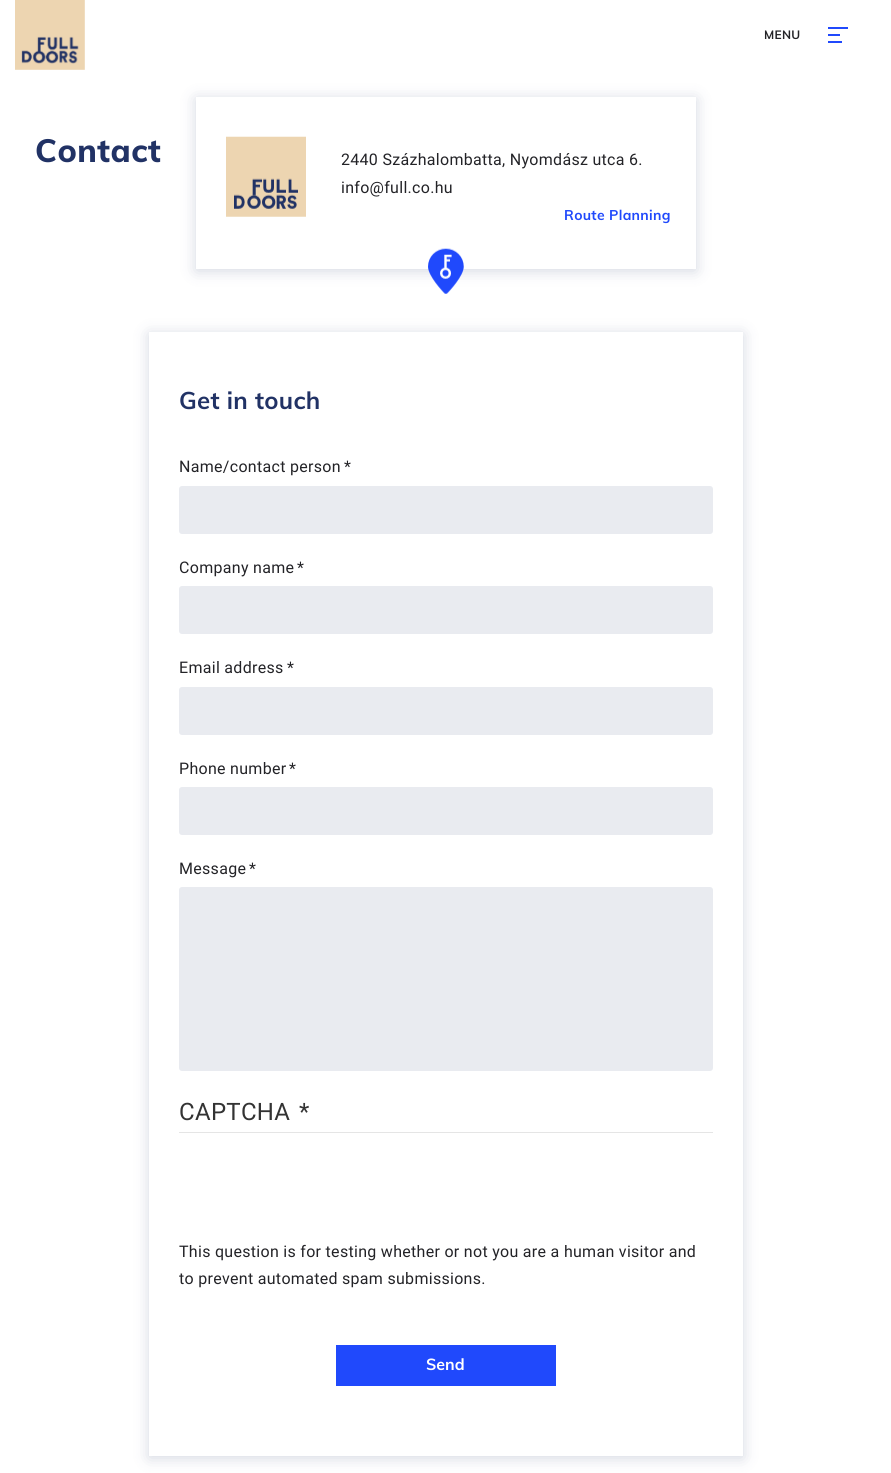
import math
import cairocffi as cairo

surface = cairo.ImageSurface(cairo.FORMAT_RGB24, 891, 1473)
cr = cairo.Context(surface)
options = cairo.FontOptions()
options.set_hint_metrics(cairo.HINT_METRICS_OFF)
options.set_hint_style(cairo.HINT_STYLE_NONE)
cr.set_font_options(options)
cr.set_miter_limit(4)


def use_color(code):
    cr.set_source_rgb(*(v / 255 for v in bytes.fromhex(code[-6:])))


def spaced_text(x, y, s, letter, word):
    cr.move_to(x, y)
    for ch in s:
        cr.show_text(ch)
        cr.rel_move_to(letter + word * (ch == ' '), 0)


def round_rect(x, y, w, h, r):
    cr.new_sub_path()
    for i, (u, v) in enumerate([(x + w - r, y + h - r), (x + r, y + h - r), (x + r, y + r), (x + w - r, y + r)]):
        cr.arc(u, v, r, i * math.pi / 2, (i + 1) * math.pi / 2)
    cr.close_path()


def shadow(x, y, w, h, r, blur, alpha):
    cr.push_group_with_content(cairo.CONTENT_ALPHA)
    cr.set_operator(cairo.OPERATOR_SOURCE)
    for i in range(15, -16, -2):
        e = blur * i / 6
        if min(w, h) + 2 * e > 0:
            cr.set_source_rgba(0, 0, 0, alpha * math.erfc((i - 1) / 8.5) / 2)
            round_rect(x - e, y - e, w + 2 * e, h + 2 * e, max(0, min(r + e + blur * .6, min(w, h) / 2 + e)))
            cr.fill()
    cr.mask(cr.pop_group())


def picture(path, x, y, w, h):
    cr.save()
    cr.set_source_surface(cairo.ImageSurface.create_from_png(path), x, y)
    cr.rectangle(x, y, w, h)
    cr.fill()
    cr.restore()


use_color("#ffffff")
cr.paint()
picture("img1.png", 15, 0, 70, 70)
cr.select_font_face("Muli", cairo.FONT_SLANT_NORMAL, cairo.FONT_WEIGHT_BOLD)
cr.set_font_size(12)
use_color("#232327")
spaced_text(764, 39, "MENU", 0.3, 0)
use_color("#2049fc")
cr.rectangle(828, 27, 20, 2)
cr.fill()
cr.rectangle(828, 34, 12, 2)
cr.fill()
cr.rectangle(828, 41, 14, 2)
cr.fill()
cr.select_font_face("Muli ExtraBold")
cr.set_font_size(32)
use_color("#213265")
spaced_text(35, 162, "Contact", 0.5, 0)
cr.save()
cr.set_fill_rule(cairo.FILL_RULE_EVEN_ODD)
cr.new_path()
cr.move_to(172, 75)
cr.line_to(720, 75)
cr.line_to(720, 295)
cr.line_to(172, 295)
cr.close_path()
cr.move_to(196, 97)
cr.line_to(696, 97)
cr.line_to(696, 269)
cr.line_to(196, 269)
cr.close_path()
cr.clip()
use_color("#213265")
shadow(196, 99, 500, 172, 0, 7.5, 0.2)
cr.restore()
cr.set_source_rgba(1, 1, 1, 0.9)
cr.rectangle(196, 268, 500, 1)
cr.fill()
picture("img2.png", 226, 136, 80, 81)
cr.select_font_face("Roboto")
cr.set_font_size(16)
use_color("#232327")
spaced_text(341, 165, "2440 Százhalombatta, Nyomdász utca 6.", 0.3, 0)
spaced_text(341, 193, "info@full.co.hu", 0.3, 0)
cr.select_font_face("Muli", cairo.FONT_SLANT_NORMAL, cairo.FONT_WEIGHT_BOLD)
cr.set_font_size(14)
use_color("#2049fc")
spaced_text(564, 220, "Route Planning", 0.3, 0)
picture("img3.png", 428, 248, 36, 46)
cr.save()
cr.set_fill_rule(cairo.FILL_RULE_EVEN_ODD)
cr.new_path()
cr.move_to(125, 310)
cr.line_to(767, 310)
cr.line_to(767, 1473)
cr.line_to(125, 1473)
cr.close_path()
cr.move_to(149, 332)
cr.line_to(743, 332)
cr.line_to(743, 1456)
cr.line_to(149, 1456)
cr.close_path()
cr.clip()
use_color("#213265")
shadow(149, 334, 594, 1124, 0, 7.5, 0.2)
cr.restore()
cr.set_font_size(24)
use_color("#213265")
spaced_text(179, 409, "Get in touch", 0.3, 0)
cr.select_font_face("Roboto")
cr.set_font_size(16)
use_color("#232327")
spaced_text(179, 472, "Name/contact person", 0.3, 0)
spaced_text(344, 472, "*", 0.3, 0)
use_color("#e9ebf0")
round_rect(179, 486, 534, 48, 3)
cr.fill()
use_color("#232327")
spaced_text(179, 573, "Company name", 0.3, 0)
spaced_text(297, 573, "*", 0.3, 0)
use_color("#e9ebf0")
round_rect(179, 586, 534, 48, 3)
cr.fill()
use_color("#232327")
spaced_text(179, 673, "Email address", 0.3, 0)
spaced_text(287, 673, "*", 0.3, 0)
use_color("#e9ebf0")
round_rect(179, 687, 534, 48, 3)
cr.fill()
use_color("#232327")
spaced_text(179, 774, "Phone number", 0.3, 0)
spaced_text(289, 774, "*", 0.3, 0)
use_color("#e9ebf0")
round_rect(179, 787, 534, 48, 3)
cr.fill()
use_color("#232327")
spaced_text(179, 874, "Message", 0.3, 0)
spaced_text(249, 874, "*", 0.3, 0)
use_color("#e9ebf0")
round_rect(179, 887, 534, 184, 3)
cr.fill()
use_color("#e5e5e5")
cr.rectangle(179, 1132, 534, 1)
cr.fill()
cr.set_font_size(24)
use_color("#333333")
spaced_text(179, 1120, "CAPTCHA", 0.3, 0)
spaced_text(299, 1120, "*", 0.3, 0)
cr.set_font_size(16)
use_color("#232327")
spaced_text(179, 1257, "This question is for testing whether or not you are a human visitor and", 0.3, 0)
spaced_text(179, 1284, "to prevent automated spam submissions.", 0.3, 0)
use_color("#2049fc")
cr.rectangle(336, 1345, 220, 41)
cr.fill()
cr.select_font_face("Muli", cairo.FONT_SLANT_NORMAL, cairo.FONT_WEIGHT_BOLD)
use_color("#ffffff")
cr.move_to(426, 1370)
cr.show_text("Send")
surface.write_to_png("result.png")
